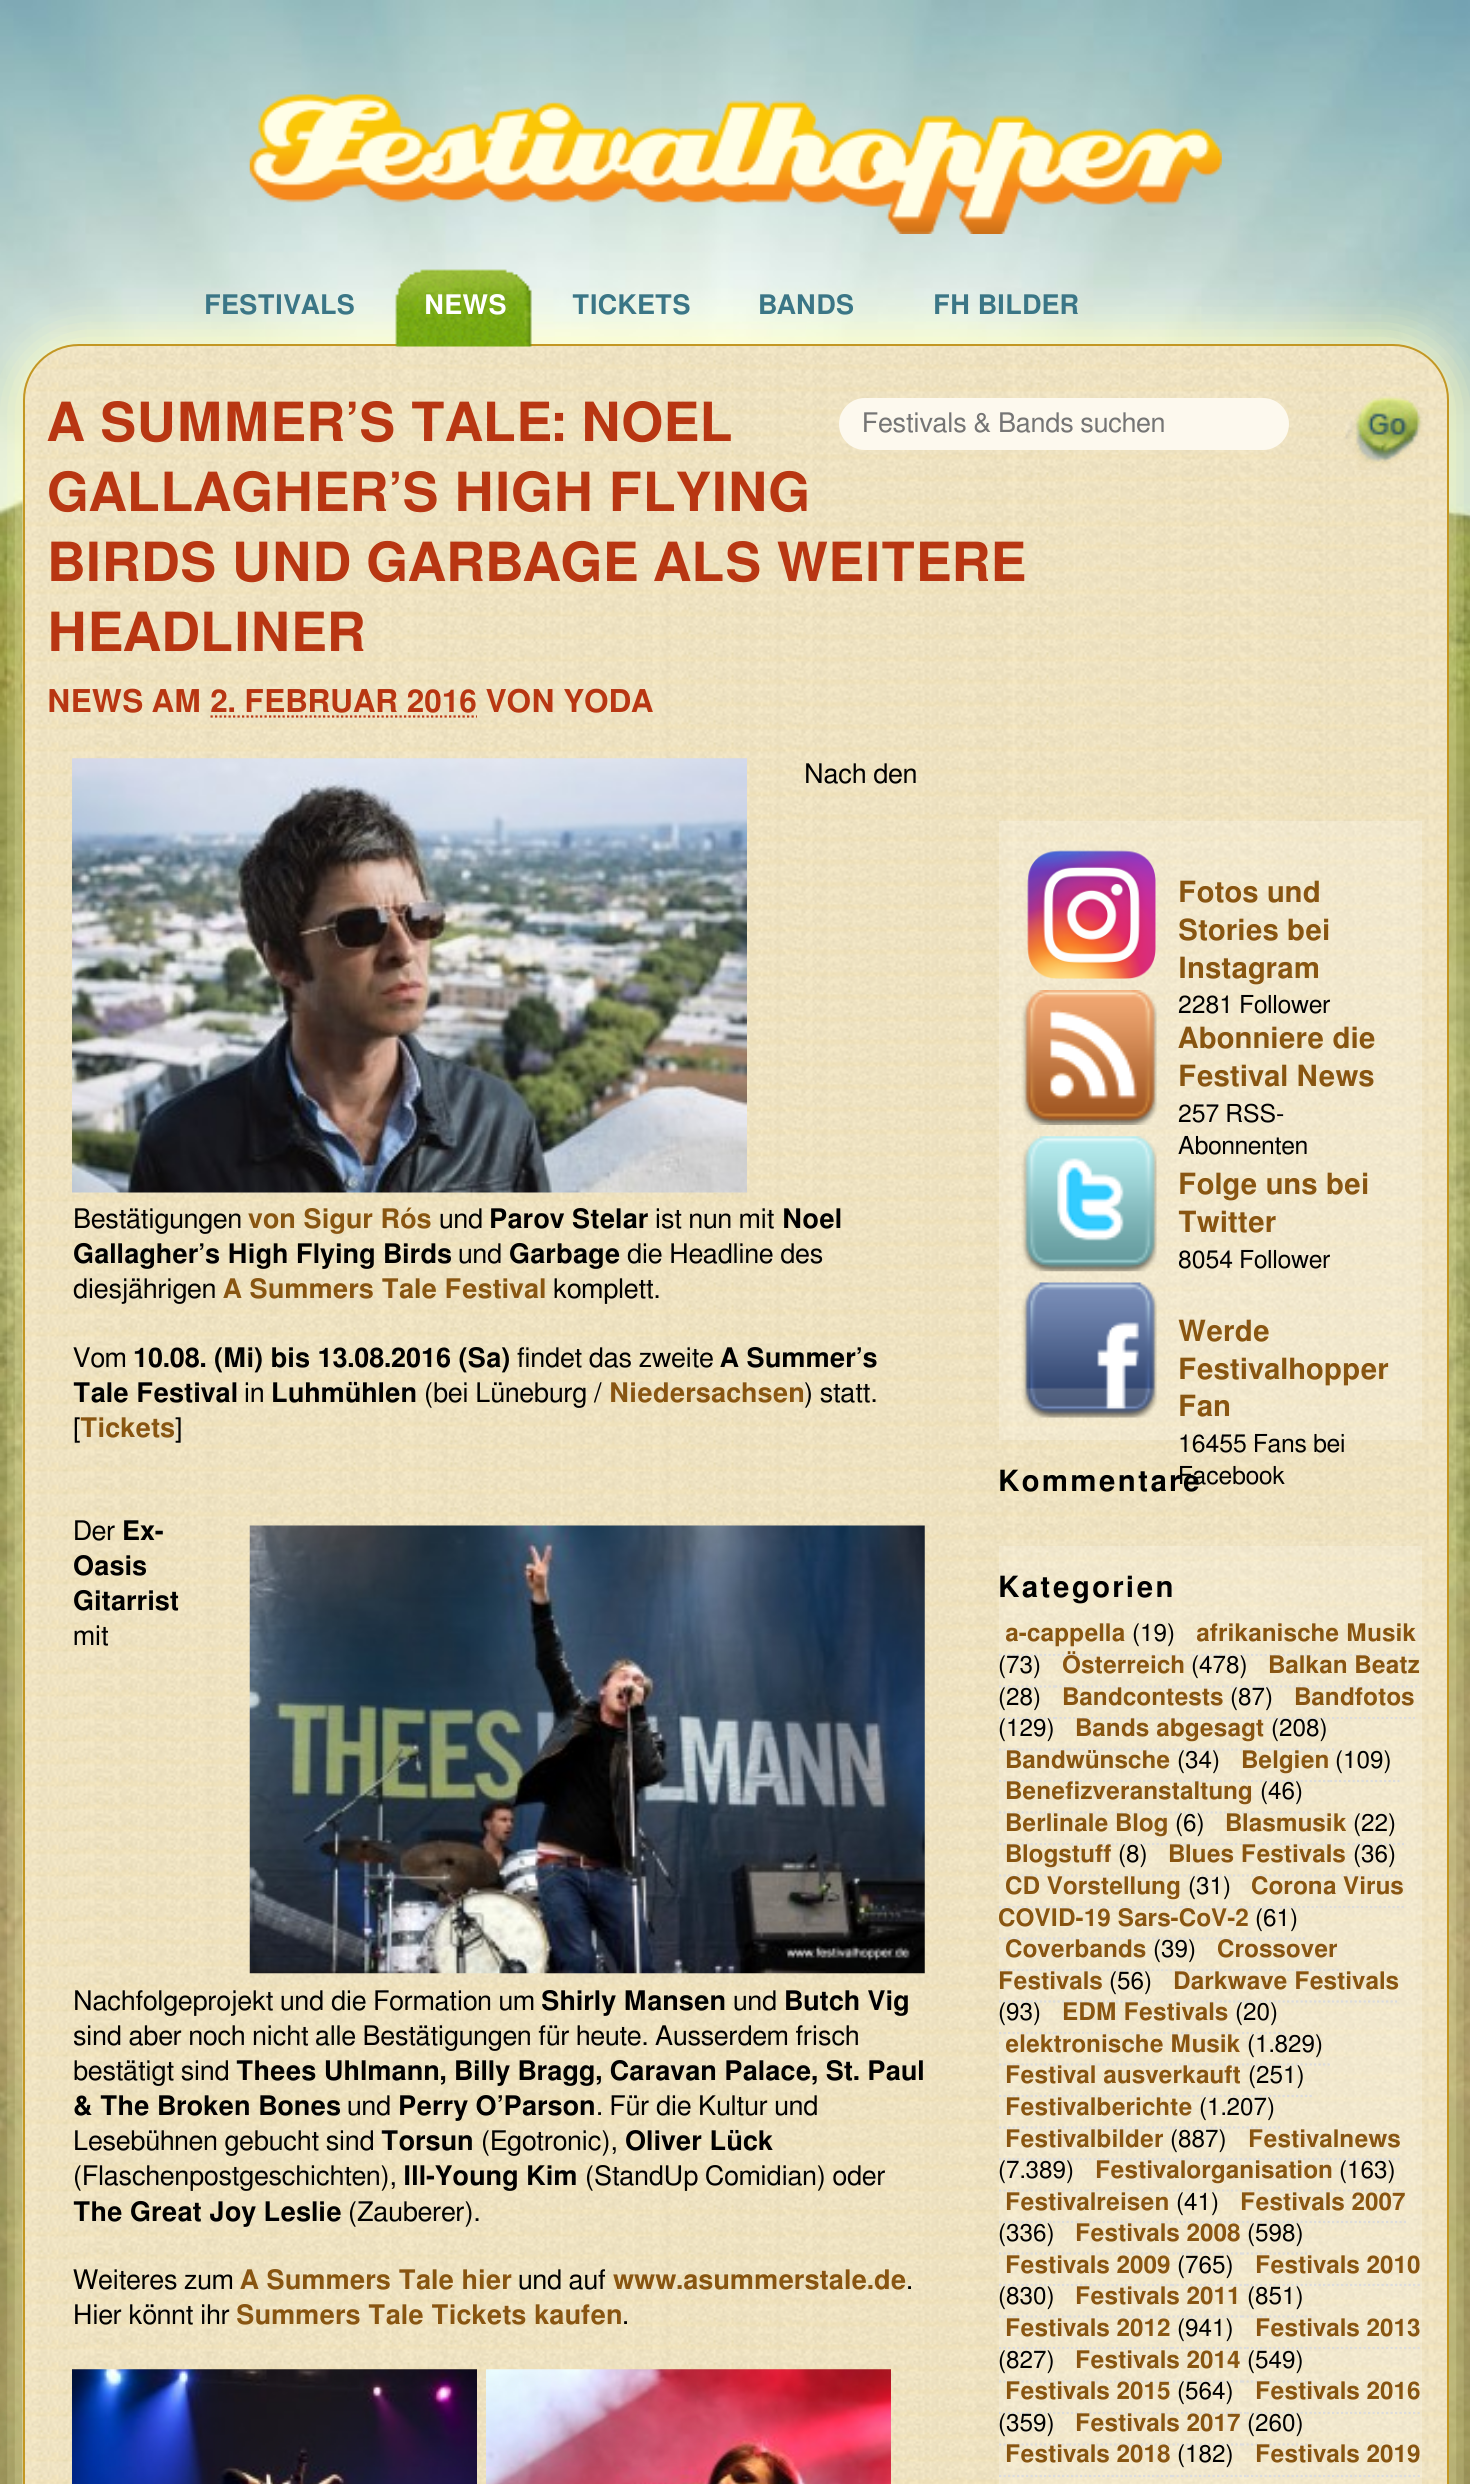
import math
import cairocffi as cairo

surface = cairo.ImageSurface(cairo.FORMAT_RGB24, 1470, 2484)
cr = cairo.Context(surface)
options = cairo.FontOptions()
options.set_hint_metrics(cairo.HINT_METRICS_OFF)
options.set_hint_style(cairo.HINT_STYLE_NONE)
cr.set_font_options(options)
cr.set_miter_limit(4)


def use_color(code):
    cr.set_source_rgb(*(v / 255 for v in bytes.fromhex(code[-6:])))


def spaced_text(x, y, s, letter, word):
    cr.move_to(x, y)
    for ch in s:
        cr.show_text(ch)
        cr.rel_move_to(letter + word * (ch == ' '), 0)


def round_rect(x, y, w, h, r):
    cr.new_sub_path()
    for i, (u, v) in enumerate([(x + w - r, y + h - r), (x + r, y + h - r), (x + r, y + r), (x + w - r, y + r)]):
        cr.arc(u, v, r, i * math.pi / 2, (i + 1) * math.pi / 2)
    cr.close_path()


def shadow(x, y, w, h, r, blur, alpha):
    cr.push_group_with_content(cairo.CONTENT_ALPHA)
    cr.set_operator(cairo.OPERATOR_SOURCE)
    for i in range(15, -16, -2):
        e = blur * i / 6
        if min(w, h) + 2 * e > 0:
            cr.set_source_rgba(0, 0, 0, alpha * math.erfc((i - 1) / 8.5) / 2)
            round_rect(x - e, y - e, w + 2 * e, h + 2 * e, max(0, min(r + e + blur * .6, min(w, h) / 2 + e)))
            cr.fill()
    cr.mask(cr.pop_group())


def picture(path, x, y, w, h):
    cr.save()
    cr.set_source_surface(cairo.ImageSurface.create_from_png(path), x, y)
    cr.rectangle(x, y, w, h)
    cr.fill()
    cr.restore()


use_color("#ffffff")
cr.paint()
picture("img1.png", 0, 0, 1470, 2484)
picture("img2.png", 249, 94, 973, 140)
use_color("#ffffbe")
shadow(11, 333, 1449, 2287, 68, 22.5, 0.8)
cr.select_font_face("FreeSans SemiBold")
cr.set_font_size(27)
use_color("#3b7686")
cr.move_to(204, 314)
cr.show_text("FESTIVALS")
picture("img4.png", 22, 344, 1427, 2140)
round_rect(24, 345, 1424, 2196, 55)
use_color("#c39723")
cr.stroke()
picture("img3.png", 395, 269, 137, 78)
use_color("#ffffff")
cr.move_to(424, 314)
cr.show_text("NEWS")
use_color("#3b7686")
cr.move_to(572, 314)
cr.show_text("TICKETS")
cr.move_to(758, 314)
cr.show_text("BANDS")
cr.move_to(933, 314)
cr.show_text("FH BILDER")
cr.set_font_size(54)
use_color("#b83612")
cr.move_to(47, 441)
cr.show_text("A SUMMER’S TALE: NOEL")
cr.move_to(47, 511)
cr.show_text("GALLAGHER’S HIGH FLYING")
cr.move_to(47, 581)
cr.show_text("BIRDS UND GARBAGE ALS WEITERE")
cr.move_to(47, 651)
cr.show_text("HEADLINER")
cr.set_font_size(31.5)
cr.move_to(47, 712)
cr.show_text("NEWS AM 2. FEBRUAR 2016 VON YODA")
cr.new_path()
cr.move_to(210.5, 716.5)
cr.line_to(477, 716.5)
cr.set_line_width(2.2)
cr.set_dash([2.25, 2.25])
cr.stroke()
picture("img5.png", 72, 758, 675, 435)
cr.select_font_face("FreeSans")
cr.set_font_size(27)
use_color("#000000")
cr.move_to(804, 783)
cr.show_text("Nach den")
cr.move_to(73, 1228)
cr.show_text("Bestätigungen")
cr.select_font_face("FreeSans SemiBold")
use_color("#885511")
cr.move_to(248, 1228)
cr.show_text("von Sigur Rós")
cr.select_font_face("FreeSans")
use_color("#000000")
cr.move_to(439, 1228)
cr.show_text("und")
cr.select_font_face("FreeSans SemiBold")
cr.move_to(489, 1228)
cr.show_text("Parov Stelar")
cr.select_font_face("FreeSans")
cr.move_to(655, 1228)
cr.show_text("ist nun mit")
cr.select_font_face("FreeSans SemiBold")
cr.move_to(782, 1228)
cr.show_text("Noel")
cr.move_to(73, 1263)
cr.show_text("Gallagher’s High Flying Birds")
cr.select_font_face("FreeSans")
cr.move_to(458, 1263)
cr.show_text("und")
cr.select_font_face("FreeSans SemiBold")
cr.move_to(509, 1263)
cr.show_text("Garbage")
cr.select_font_face("FreeSans")
cr.move_to(627, 1263)
cr.show_text("die Headline des")
cr.move_to(73, 1298)
cr.show_text("diesjährigen")
cr.select_font_face("FreeSans SemiBold")
use_color("#885511")
cr.move_to(223, 1298)
cr.show_text("A Summers Tale Festival")
cr.select_font_face("FreeSans")
use_color("#000000")
cr.move_to(553, 1298)
cr.show_text("komplett.")
cr.move_to(73, 1367)
cr.show_text("Vom")
cr.select_font_face("FreeSans SemiBold")
cr.move_to(133, 1367)
cr.show_text("10.08. (Mi) bis 13.08.2016 (Sa)")
cr.select_font_face("FreeSans")
cr.move_to(517, 1367)
cr.show_text("findet das zweite")
cr.select_font_face("FreeSans SemiBold")
cr.move_to(720, 1367)
cr.show_text("A Summer’s")
cr.move_to(73, 1402)
cr.show_text("Tale Festival")
cr.select_font_face("FreeSans")
cr.move_to(244, 1402)
cr.show_text("in")
cr.select_font_face("FreeSans SemiBold")
cr.move_to(271, 1402)
cr.show_text("Luhmühlen")
cr.select_font_face("FreeSans")
cr.move_to(424, 1402)
cr.show_text("(bei Lüneburg /")
cr.select_font_face("FreeSans SemiBold")
use_color("#885511")
cr.move_to(609, 1402)
cr.show_text("Niedersachsen")
cr.select_font_face("FreeSans")
use_color("#000000")
cr.move_to(804, 1402)
cr.show_text(") statt.")
cr.move_to(73, 1437)
cr.show_text("[")
cr.select_font_face("FreeSans SemiBold")
use_color("#885511")
cr.move_to(80, 1437)
cr.show_text("Tickets")
cr.select_font_face("FreeSans")
use_color("#000000")
cr.move_to(175, 1437)
cr.show_text("]")
cr.move_to(73, 1540)
cr.show_text("Der")
cr.select_font_face("FreeSans SemiBold")
cr.move_to(122, 1540)
cr.show_text("Ex-")
picture("img6.png", 249, 1525, 676, 449)
cr.move_to(73, 1575)
cr.show_text("Oasis")
cr.move_to(73, 1610)
cr.show_text("Gitarrist")
cr.select_font_face("FreeSans")
cr.move_to(73, 1645)
cr.show_text("mit")
cr.move_to(73, 2010)
cr.show_text("Nachfolgeprojekt und die Formation um")
cr.select_font_face("FreeSans SemiBold")
cr.move_to(541, 2010)
cr.show_text("Shirly Mansen")
cr.select_font_face("FreeSans")
cr.move_to(733, 2010)
cr.show_text("und")
cr.select_font_face("FreeSans SemiBold")
cr.move_to(784, 2010)
cr.show_text("Butch Vig")
cr.select_font_face("FreeSans")
cr.move_to(73, 2045)
cr.show_text("sind aber noch nicht alle Bestätigungen für heute. Ausserdem frisch")
cr.move_to(73, 2080)
cr.show_text("bestätigt sind")
cr.select_font_face("FreeSans SemiBold")
cr.move_to(236, 2080)
cr.show_text("Thees Uhlmann, Billy Bragg, Caravan Palace, St. Paul")
cr.move_to(73, 2115)
cr.show_text("& The Broken Bones")
cr.select_font_face("FreeSans")
cr.move_to(347, 2115)
cr.show_text("und")
cr.select_font_face("FreeSans SemiBold")
cr.move_to(398, 2115)
cr.show_text("Perry O’Parson")
cr.select_font_face("FreeSans")
cr.move_to(596, 2115)
cr.show_text(". Für die Kultur und")
cr.move_to(73, 2150)
cr.show_text("Lesebühnen gebucht sind")
cr.select_font_face("FreeSans SemiBold")
cr.move_to(381, 2150)
cr.show_text("Torsun")
cr.select_font_face("FreeSans")
cr.move_to(481, 2150)
cr.show_text("(Egotronic),")
cr.select_font_face("FreeSans SemiBold")
cr.move_to(625, 2150)
cr.show_text("Oliver Lück")
cr.select_font_face("FreeSans")
cr.move_to(73, 2185)
cr.show_text("(Flaschenpostgeschichten),")
cr.select_font_face("FreeSans SemiBold")
cr.move_to(403, 2185)
cr.show_text("Ill-Young Kim")
cr.select_font_face("FreeSans")
cr.move_to(585, 2185)
cr.show_text("(StandUp Comidian) oder")
cr.select_font_face("FreeSans SemiBold")
cr.move_to(73, 2221)
cr.show_text("The Great Joy Leslie")
cr.select_font_face("FreeSans")
cr.move_to(348, 2221)
cr.show_text("(Zauberer).")
cr.move_to(73, 2289)
cr.show_text("Weiteres zum")
cr.select_font_face("FreeSans SemiBold")
use_color("#885511")
cr.move_to(240, 2289)
cr.show_text("A Summers Tale hier")
cr.select_font_face("FreeSans")
use_color("#000000")
cr.move_to(518, 2289)
cr.show_text("und auf")
cr.select_font_face("FreeSans SemiBold")
use_color("#885511")
cr.move_to(613, 2289)
cr.show_text("www.asummerstale.de")
cr.select_font_face("FreeSans")
use_color("#000000")
cr.move_to(906, 2289)
cr.show_text(".")
cr.move_to(73, 2324)
cr.show_text("Hier könnt ihr")
cr.select_font_face("FreeSans SemiBold")
use_color("#885511")
cr.move_to(236, 2324)
cr.show_text("Summers Tale Tickets kaufen")
cr.select_font_face("FreeSans")
use_color("#000000")
cr.move_to(622, 2324)
cr.show_text(".")
picture("img7.png", 72, 2369, 405, 115)
picture("img8.png", 486, 2369, 405, 115)
cr.set_font_size(24.75)
cr.move_to(1178, 1484)
cr.show_text("Facebook")
cr.select_font_face("FreeSans SemiBold")
cr.set_font_size(29.25)
spaced_text(998, 1491, "Kommentare", 2.25, 0)
cr.set_source_rgba(1, 1, 1, 0.2)
cr.rectangle(999, 821, 423, 619)
cr.fill()
picture("img9.png", 1027, 850, 129, 129)
use_color("#885511")
cr.move_to(1178, 902)
cr.show_text("Fotos und")
cr.move_to(1178, 940)
cr.show_text("Stories bei")
cr.move_to(1178, 978)
cr.show_text("Instagram")
cr.select_font_face("FreeSans")
cr.set_font_size(24.75)
use_color("#000000")
cr.move_to(1178, 1013)
cr.show_text("2281 Follower")
picture("img10.png", 1021, 990, 136, 135)
cr.select_font_face("FreeSans SemiBold")
cr.set_font_size(29.25)
use_color("#885511")
cr.move_to(1178, 1048)
cr.show_text("Abonniere die")
cr.move_to(1178, 1086)
cr.show_text("Festival News")
cr.select_font_face("FreeSans")
cr.set_font_size(24.75)
use_color("#000000")
cr.move_to(1178, 1122)
cr.show_text("257 RSS-")
cr.move_to(1178, 1154)
cr.show_text("Abonnenten")
picture("img11.png", 1021, 1136, 136, 136)
cr.select_font_face("FreeSans SemiBold")
cr.set_font_size(29.25)
use_color("#885511")
cr.move_to(1178, 1194)
cr.show_text("Folge uns bei")
cr.move_to(1178, 1232)
cr.show_text("Twitter")
cr.select_font_face("FreeSans")
cr.set_font_size(24.75)
use_color("#000000")
cr.move_to(1178, 1268)
cr.show_text("8054 Follower")
picture("img12.png", 1021, 1282, 136, 136)
cr.select_font_face("FreeSans SemiBold")
cr.set_font_size(29.25)
use_color("#885511")
cr.move_to(1178, 1341)
cr.show_text("Werde")
cr.move_to(1178, 1379)
cr.show_text("Festivalhopper")
cr.move_to(1178, 1416)
cr.show_text("Fan")
cr.select_font_face("FreeSans")
cr.set_font_size(24.75)
use_color("#000000")
cr.move_to(1178, 1452)
cr.show_text("16455 Fans bei")
cr.set_source_rgba(1, 1, 1, 0.2)
cr.rectangle(999, 1546, 423, 938)
cr.fill()
cr.select_font_face("FreeSans SemiBold")
cr.set_font_size(29.25)
use_color("#000000")
spaced_text(998, 1597, "Kategorien", 2.25, 0)
cr.set_font_size(24.25)
use_color("#885511")
cr.move_to(1005, 1641)
cr.show_text("a-cappella")
cr.new_path()
cr.move_to(999, 1655)
cr.line_to(1125, 1655)
use_color("#dddddd")
cr.stroke()
cr.new_path()
cr.move_to(1125, 1655)
cr.line_to(1188, 1655)
cr.stroke()
cr.select_font_face("FreeSans")
use_color("#000000")
cr.move_to(1132, 1641)
cr.show_text("(19)")
cr.select_font_face("FreeSans SemiBold")
use_color("#885511")
cr.move_to(1196, 1641)
cr.show_text("afrikanische Musik")
cr.new_path()
cr.move_to(1188, 1655)
cr.line_to(1415, 1655)
use_color("#dddddd")
cr.stroke()
cr.select_font_face("FreeSans")
use_color("#000000")
cr.move_to(998, 1673)
cr.show_text("(73)")
cr.new_path()
cr.move_to(999, 1686.5)
cr.line_to(1055, 1686.5)
use_color("#dddddd")
cr.stroke()
cr.select_font_face("FreeSans SemiBold")
use_color("#885511")
cr.move_to(1062, 1673)
cr.show_text("Österreich")
cr.select_font_face("FreeSans")
use_color("#000000")
cr.move_to(1191, 1673)
cr.show_text("(478)")
cr.new_path()
cr.move_to(1055, 1686.5)
cr.line_to(1186, 1686.5)
use_color("#dddddd")
cr.stroke()
cr.new_path()
cr.move_to(1186, 1686.5)
cr.line_to(1262, 1686.5)
cr.stroke()
cr.select_font_face("FreeSans SemiBold")
use_color("#885511")
cr.move_to(1268, 1673)
cr.show_text("Balkan Beatz")
cr.new_path()
cr.move_to(1262, 1686.5)
cr.line_to(1420, 1686.5)
use_color("#dddddd")
cr.stroke()
cr.select_font_face("FreeSans")
use_color("#000000")
cr.move_to(998, 1705)
cr.show_text("(28)")
cr.new_path()
cr.move_to(999, 1718)
cr.line_to(1055, 1718)
use_color("#dddddd")
cr.stroke()
cr.select_font_face("FreeSans SemiBold")
use_color("#885511")
cr.move_to(1062, 1705)
cr.show_text("Bandcontests")
cr.new_path()
cr.move_to(1055, 1718)
cr.line_to(1224, 1718)
use_color("#dddddd")
cr.stroke()
cr.select_font_face("FreeSans")
use_color("#000000")
cr.move_to(1230, 1705)
cr.show_text("(87)")
cr.new_path()
cr.move_to(1224, 1718)
cr.line_to(1287, 1718)
use_color("#dddddd")
cr.stroke()
cr.select_font_face("FreeSans SemiBold")
use_color("#885511")
cr.move_to(1294, 1705)
cr.show_text("Bandfotos")
cr.new_path()
cr.move_to(1287, 1718)
cr.line_to(1415, 1718)
use_color("#dddddd")
cr.stroke()
cr.select_font_face("FreeSans")
use_color("#000000")
cr.move_to(998, 1736)
cr.show_text("(129)")
cr.new_path()
cr.move_to(999, 1749.5)
cr.line_to(1069, 1749.5)
use_color("#dddddd")
cr.stroke()
cr.select_font_face("FreeSans SemiBold")
use_color("#885511")
cr.move_to(1075, 1736)
cr.show_text("Bands abgesagt")
cr.new_path()
cr.move_to(1069, 1749.5)
cr.line_to(1264.5, 1749.5)
use_color("#dddddd")
cr.stroke()
cr.new_path()
cr.move_to(1264.5, 1749.5)
cr.line_to(1334, 1749.5)
cr.stroke()
cr.select_font_face("FreeSans")
use_color("#000000")
cr.move_to(1271, 1736)
cr.show_text("(208)")
cr.select_font_face("FreeSans SemiBold")
use_color("#885511")
cr.move_to(1005, 1768)
cr.show_text("Bandwünsche")
cr.new_path()
cr.move_to(999, 1781)
cr.line_to(1170, 1781)
use_color("#dddddd")
cr.stroke()
cr.select_font_face("FreeSans")
use_color("#000000")
cr.move_to(1177, 1768)
cr.show_text("(34)")
cr.new_path()
cr.move_to(1170, 1781)
cr.line_to(1233, 1781)
use_color("#dddddd")
cr.stroke()
cr.select_font_face("FreeSans SemiBold")
use_color("#885511")
cr.move_to(1241, 1768)
cr.show_text("Belgien")
cr.new_path()
cr.move_to(1233, 1781)
cr.line_to(1330, 1781)
use_color("#dddddd")
cr.stroke()
cr.select_font_face("FreeSans")
use_color("#000000")
cr.move_to(1335, 1768)
cr.show_text("(109)")
cr.new_path()
cr.move_to(1330, 1781)
cr.line_to(1399.5, 1781)
use_color("#dddddd")
cr.stroke()
cr.select_font_face("FreeSans SemiBold")
use_color("#885511")
cr.move_to(1005, 1799)
cr.show_text("Benefizveranstaltung")
cr.new_path()
cr.move_to(999, 1812.5)
cr.line_to(1253, 1812.5)
use_color("#dddddd")
cr.stroke()
cr.new_path()
cr.move_to(1253, 1812.5)
cr.line_to(1309.5, 1812.5)
cr.stroke()
cr.select_font_face("FreeSans")
use_color("#000000")
cr.move_to(1260, 1799)
cr.show_text("(46)")
cr.select_font_face("FreeSans SemiBold")
use_color("#885511")
cr.move_to(1005, 1831)
cr.show_text("Berlinale Blog")
cr.new_path()
cr.move_to(999, 1844)
cr.line_to(1170, 1844)
use_color("#dddddd")
cr.stroke()
cr.select_font_face("FreeSans")
use_color("#000000")
cr.move_to(1175, 1831)
cr.show_text("(6)")
cr.new_path()
cr.move_to(1170, 1844)
cr.line_to(1217, 1844)
use_color("#dddddd")
cr.stroke()
cr.select_font_face("FreeSans SemiBold")
use_color("#885511")
cr.move_to(1225, 1831)
cr.show_text("Blasmusik")
cr.new_path()
cr.move_to(1217, 1844)
cr.line_to(1348, 1844)
use_color("#dddddd")
cr.stroke()
cr.select_font_face("FreeSans")
use_color("#000000")
cr.move_to(1353, 1831)
cr.show_text("(22)")
cr.new_path()
cr.move_to(1348, 1844)
cr.line_to(1404, 1844)
use_color("#dddddd")
cr.stroke()
cr.select_font_face("FreeSans SemiBold")
use_color("#885511")
cr.move_to(1005, 1862)
cr.show_text("Blogstuff")
cr.new_path()
cr.move_to(999, 1875.5)
cr.line_to(1111.5, 1875.5)
use_color("#dddddd")
cr.stroke()
cr.select_font_face("FreeSans")
use_color("#000000")
cr.move_to(1118, 1862)
cr.show_text("(8)")
cr.new_path()
cr.move_to(1111.5, 1875.5)
cr.line_to(1161, 1875.5)
use_color("#dddddd")
cr.stroke()
cr.select_font_face("FreeSans SemiBold")
use_color("#885511")
cr.move_to(1168, 1862)
cr.show_text("Blues Festivals")
cr.new_path()
cr.move_to(1161, 1875.5)
cr.line_to(1345.5, 1875.5)
use_color("#dddddd")
cr.stroke()
cr.select_font_face("FreeSans")
use_color("#000000")
cr.move_to(1353, 1862)
cr.show_text("(36)")
cr.new_path()
cr.move_to(1345.5, 1875.5)
cr.line_to(1404, 1875.5)
use_color("#dddddd")
cr.stroke()
cr.select_font_face("FreeSans SemiBold")
use_color("#885511")
cr.move_to(1005, 1894)
cr.show_text("CD Vorstellung")
cr.new_path()
cr.move_to(999, 1907)
cr.line_to(1181, 1907)
use_color("#dddddd")
cr.stroke()
cr.select_font_face("FreeSans")
use_color("#000000")
cr.move_to(1188, 1894)
cr.show_text("(31)")
cr.new_path()
cr.move_to(1181, 1907)
cr.line_to(1244, 1907)
use_color("#dddddd")
cr.stroke()
cr.select_font_face("FreeSans SemiBold")
use_color("#885511")
cr.move_to(1251, 1894)
cr.show_text("Corona Virus")
cr.new_path()
cr.move_to(1244, 1907)
cr.line_to(1404, 1907)
use_color("#dddddd")
cr.stroke()
use_color("#885511")
cr.move_to(998, 1926)
cr.show_text("COVID-19 Sars-CoV-2")
cr.new_path()
cr.move_to(999, 1938.5)
cr.line_to(1249, 1938.5)
use_color("#dddddd")
cr.stroke()
cr.select_font_face("FreeSans")
use_color("#000000")
cr.move_to(1255, 1926)
cr.show_text("(61)")
cr.new_path()
cr.move_to(1249, 1938.5)
cr.line_to(1305, 1938.5)
use_color("#dddddd")
cr.stroke()
cr.select_font_face("FreeSans SemiBold")
use_color("#885511")
cr.move_to(1005, 1957)
cr.show_text("Coverbands")
cr.new_path()
cr.move_to(999, 1970)
cr.line_to(1147.5, 1970)
use_color("#dddddd")
cr.stroke()
cr.select_font_face("FreeSans")
use_color("#000000")
cr.move_to(1153, 1957)
cr.show_text("(39)")
cr.new_path()
cr.move_to(1147.5, 1970)
cr.line_to(1210.5, 1970)
use_color("#dddddd")
cr.stroke()
cr.select_font_face("FreeSans SemiBold")
use_color("#885511")
cr.move_to(1217, 1957)
cr.show_text("Crossover")
cr.new_path()
cr.move_to(1210.5, 1970)
cr.line_to(1339, 1970)
use_color("#dddddd")
cr.stroke()
use_color("#885511")
cr.move_to(998, 1989)
cr.show_text("Festivals")
cr.new_path()
cr.move_to(999, 2001.5)
cr.line_to(1102.5, 2001.5)
use_color("#dddddd")
cr.stroke()
cr.select_font_face("FreeSans")
use_color("#000000")
cr.move_to(1109, 1989)
cr.show_text("(56)")
cr.new_path()
cr.move_to(1102.5, 2001.5)
cr.line_to(1165.5, 2001.5)
use_color("#dddddd")
cr.stroke()
cr.select_font_face("FreeSans SemiBold")
use_color("#885511")
cr.move_to(1173, 1989)
cr.show_text("Darkwave Festivals")
cr.new_path()
cr.move_to(1165.5, 2001.5)
cr.line_to(1399.5, 2001.5)
use_color("#dddddd")
cr.stroke()
cr.select_font_face("FreeSans")
use_color("#000000")
cr.move_to(998, 2020)
cr.show_text("(93)")
cr.new_path()
cr.move_to(999, 2033)
cr.line_to(1055, 2033)
use_color("#dddddd")
cr.stroke()
cr.select_font_face("FreeSans SemiBold")
use_color("#885511")
cr.move_to(1062, 2020)
cr.show_text("EDM Festivals")
cr.new_path()
cr.move_to(1055, 2033)
cr.line_to(1228.5, 2033)
use_color("#dddddd")
cr.stroke()
cr.select_font_face("FreeSans")
use_color("#000000")
cr.move_to(1235, 2020)
cr.show_text("(20)")
cr.new_path()
cr.move_to(1228.5, 2033)
cr.line_to(1285, 2033)
use_color("#dddddd")
cr.stroke()
cr.select_font_face("FreeSans SemiBold")
use_color("#885511")
cr.move_to(1005, 2052)
cr.show_text("elektronische Musik")
cr.new_path()
cr.move_to(999, 2064.5)
cr.line_to(1242, 2064.5)
use_color("#dddddd")
cr.stroke()
cr.select_font_face("FreeSans")
use_color("#000000")
cr.move_to(1247, 2052)
cr.show_text("(1.829)")
cr.new_path()
cr.move_to(1242, 2064.5)
cr.line_to(1330, 2064.5)
use_color("#dddddd")
cr.stroke()
cr.select_font_face("FreeSans SemiBold")
use_color("#885511")
cr.move_to(1005, 2083)
cr.show_text("Festival ausverkauft")
cr.new_path()
cr.move_to(999, 2096)
cr.line_to(1242, 2096)
use_color("#dddddd")
cr.stroke()
cr.select_font_face("FreeSans")
use_color("#000000")
cr.move_to(1248, 2083)
cr.show_text("(251)")
cr.new_path()
cr.move_to(1242, 2096)
cr.line_to(1312, 2096)
use_color("#dddddd")
cr.stroke()
cr.select_font_face("FreeSans SemiBold")
use_color("#885511")
cr.move_to(1005, 2115)
cr.show_text("Festivalberichte")
cr.new_path()
cr.move_to(999, 2127.5)
cr.line_to(1192.5, 2127.5)
use_color("#dddddd")
cr.stroke()
cr.select_font_face("FreeSans")
use_color("#000000")
cr.move_to(1199, 2115)
cr.show_text("(1.207)")
cr.new_path()
cr.move_to(1192.5, 2127.5)
cr.line_to(1282.5, 2127.5)
use_color("#dddddd")
cr.stroke()
cr.select_font_face("FreeSans SemiBold")
use_color("#885511")
cr.move_to(1005, 2147)
cr.show_text("Festivalbilder")
cr.new_path()
cr.move_to(999, 2159)
cr.line_to(1163, 2159)
use_color("#dddddd")
cr.stroke()
cr.select_font_face("FreeSans")
use_color("#000000")
cr.move_to(1170, 2147)
cr.show_text("(887)")
cr.new_path()
cr.move_to(1163, 2159)
cr.line_to(1240, 2159)
use_color("#dddddd")
cr.stroke()
cr.select_font_face("FreeSans SemiBold")
use_color("#885511")
cr.move_to(1248, 2147)
cr.show_text("Festivalnews")
cr.new_path()
cr.move_to(1240, 2159)
cr.line_to(1399.5, 2159)
use_color("#dddddd")
cr.stroke()
cr.select_font_face("FreeSans")
use_color("#000000")
cr.move_to(998, 2178)
cr.show_text("(7.389)")
cr.new_path()
cr.move_to(999, 2190.5)
cr.line_to(1087, 2190.5)
use_color("#dddddd")
cr.stroke()
cr.select_font_face("FreeSans SemiBold")
use_color("#885511")
cr.move_to(1095, 2178)
cr.show_text("Festivalorganisation")
cr.new_path()
cr.move_to(1087, 2190.5)
cr.line_to(1334, 2190.5)
use_color("#dddddd")
cr.stroke()
cr.select_font_face("FreeSans")
use_color("#000000")
cr.move_to(1339, 2178)
cr.show_text("(163)")
cr.new_path()
cr.move_to(1334, 2190.5)
cr.line_to(1404, 2190.5)
use_color("#dddddd")
cr.stroke()
cr.select_font_face("FreeSans SemiBold")
use_color("#885511")
cr.move_to(1005, 2210)
cr.show_text("Festivalreisen")
cr.new_path()
cr.move_to(999, 2222)
cr.line_to(1170, 2222)
use_color("#dddddd")
cr.stroke()
cr.select_font_face("FreeSans")
use_color("#000000")
cr.move_to(1176, 2210)
cr.show_text("(41)")
cr.new_path()
cr.move_to(1170, 2222)
cr.line_to(1233, 2222)
use_color("#dddddd")
cr.stroke()
cr.select_font_face("FreeSans SemiBold")
use_color("#885511")
cr.move_to(1240, 2210)
cr.show_text("Festivals 2007")
cr.new_path()
cr.move_to(1233, 2222)
cr.line_to(1406, 2222)
use_color("#dddddd")
cr.stroke()
cr.select_font_face("FreeSans")
use_color("#000000")
cr.move_to(998, 2241)
cr.show_text("(336)")
cr.new_path()
cr.move_to(999, 2253.5)
cr.line_to(1069, 2253.5)
use_color("#dddddd")
cr.stroke()
cr.select_font_face("FreeSans SemiBold")
use_color("#885511")
cr.move_to(1075, 2241)
cr.show_text("Festivals 2008")
cr.new_path()
cr.move_to(1069, 2253.5)
cr.line_to(1242, 2253.5)
use_color("#dddddd")
cr.stroke()
cr.select_font_face("FreeSans")
use_color("#000000")
cr.move_to(1247, 2241)
cr.show_text("(598)")
cr.new_path()
cr.move_to(1242, 2253.5)
cr.line_to(1312, 2253.5)
use_color("#dddddd")
cr.stroke()
cr.select_font_face("FreeSans SemiBold")
use_color("#885511")
cr.move_to(1005, 2273)
cr.show_text("Festivals 2009")
cr.new_path()
cr.move_to(999, 2285)
cr.line_to(1172, 2285)
use_color("#dddddd")
cr.stroke()
cr.select_font_face("FreeSans")
use_color("#000000")
cr.move_to(1177, 2273)
cr.show_text("(765)")
cr.new_path()
cr.move_to(1172, 2285)
cr.line_to(1246.5, 2285)
use_color("#dddddd")
cr.stroke()
cr.select_font_face("FreeSans SemiBold")
use_color("#885511")
cr.move_to(1255, 2273)
cr.show_text("Festivals 2010")
cr.new_path()
cr.move_to(1246.5, 2285)
cr.line_to(1420, 2285)
use_color("#dddddd")
cr.stroke()
cr.select_font_face("FreeSans")
use_color("#000000")
cr.move_to(998, 2304)
cr.show_text("(830)")
cr.new_path()
cr.move_to(999, 2316.5)
cr.line_to(1069, 2316.5)
use_color("#dddddd")
cr.stroke()
cr.select_font_face("FreeSans SemiBold")
use_color("#885511")
cr.move_to(1075, 2304)
cr.show_text("Festivals 2011")
cr.new_path()
cr.move_to(1069, 2316.5)
cr.line_to(1242, 2316.5)
use_color("#dddddd")
cr.stroke()
cr.select_font_face("FreeSans")
use_color("#000000")
cr.move_to(1247, 2304)
cr.show_text("(851)")
cr.new_path()
cr.move_to(1242, 2316.5)
cr.line_to(1312, 2316.5)
use_color("#dddddd")
cr.stroke()
cr.select_font_face("FreeSans SemiBold")
use_color("#885511")
cr.move_to(1005, 2336)
cr.show_text("Festivals 2012")
cr.new_path()
cr.move_to(999, 2348)
cr.line_to(1172, 2348)
use_color("#dddddd")
cr.stroke()
cr.select_font_face("FreeSans")
use_color("#000000")
cr.move_to(1177, 2336)
cr.show_text("(941)")
cr.new_path()
cr.move_to(1172, 2348)
cr.line_to(1246.5, 2348)
use_color("#dddddd")
cr.stroke()
cr.select_font_face("FreeSans SemiBold")
use_color("#885511")
cr.move_to(1255, 2336)
cr.show_text("Festivals 2013")
cr.new_path()
cr.move_to(1246.5, 2348)
cr.line_to(1420, 2348)
use_color("#dddddd")
cr.stroke()
cr.select_font_face("FreeSans")
use_color("#000000")
cr.move_to(998, 2368)
cr.show_text("(827)")
cr.new_path()
cr.move_to(999, 2381.5)
cr.line_to(1069, 2381.5)
use_color("#dddddd")
cr.stroke()
cr.select_font_face("FreeSans SemiBold")
use_color("#885511")
cr.move_to(1075, 2368)
cr.show_text("Festivals 2014")
cr.new_path()
cr.move_to(1069, 2381.5)
cr.line_to(1242, 2381.5)
use_color("#dddddd")
cr.stroke()
cr.select_font_face("FreeSans")
use_color("#000000")
cr.move_to(1247, 2368)
cr.show_text("(549)")
cr.new_path()
cr.move_to(1242, 2381.5)
cr.line_to(1312, 2381.5)
use_color("#dddddd")
cr.stroke()
cr.select_font_face("FreeSans SemiBold")
use_color("#885511")
cr.move_to(1005, 2399)
cr.show_text("Festivals 2015")
cr.new_path()
cr.move_to(999, 2413)
cr.line_to(1172, 2413)
use_color("#dddddd")
cr.stroke()
cr.select_font_face("FreeSans")
use_color("#000000")
cr.move_to(1177, 2399)
cr.show_text("(564)")
cr.new_path()
cr.move_to(1172, 2413)
cr.line_to(1246.5, 2413)
use_color("#dddddd")
cr.stroke()
cr.select_font_face("FreeSans SemiBold")
use_color("#885511")
cr.move_to(1255, 2399)
cr.show_text("Festivals 2016")
cr.new_path()
cr.move_to(1246.5, 2413)
cr.line_to(1420, 2413)
use_color("#dddddd")
cr.stroke()
cr.select_font_face("FreeSans")
use_color("#000000")
cr.move_to(998, 2431)
cr.show_text("(359)")
cr.new_path()
cr.move_to(999, 2444.5)
cr.line_to(1069, 2444.5)
use_color("#dddddd")
cr.stroke()
cr.select_font_face("FreeSans SemiBold")
use_color("#885511")
cr.move_to(1075, 2431)
cr.show_text("Festivals 2017")
cr.new_path()
cr.move_to(1069, 2444.5)
cr.line_to(1242, 2444.5)
use_color("#dddddd")
cr.stroke()
cr.select_font_face("FreeSans")
use_color("#000000")
cr.move_to(1247, 2431)
cr.show_text("(260)")
cr.new_path()
cr.move_to(1242, 2444.5)
cr.line_to(1312, 2444.5)
use_color("#dddddd")
cr.stroke()
cr.select_font_face("FreeSans SemiBold")
use_color("#885511")
cr.move_to(1005, 2462)
cr.show_text("Festivals 2018")
cr.new_path()
cr.move_to(999, 2476)
cr.line_to(1172, 2476)
use_color("#dddddd")
cr.stroke()
cr.select_font_face("FreeSans")
use_color("#000000")
cr.move_to(1177, 2462)
cr.show_text("(182)")
cr.new_path()
cr.move_to(1172, 2476)
cr.line_to(1246.5, 2476)
use_color("#dddddd")
cr.stroke()
cr.select_font_face("FreeSans SemiBold")
use_color("#885511")
cr.move_to(1255, 2462)
cr.show_text("Festivals 2019")
cr.new_path()
cr.move_to(1246.5, 2476)
cr.line_to(1420, 2476)
use_color("#dddddd")
cr.stroke()
use_color("#fdf9ee")
round_rect(839, 398, 450, 52, 26)
cr.fill()
cr.select_font_face("FreeSans")
cr.set_font_size(27)
use_color("#757575")
cr.move_to(862, 432)
cr.show_text("Festivals & Bands suchen")
picture("img13.png", 1345, 396, 79, 74)
surface.write_to_png("result.png")
